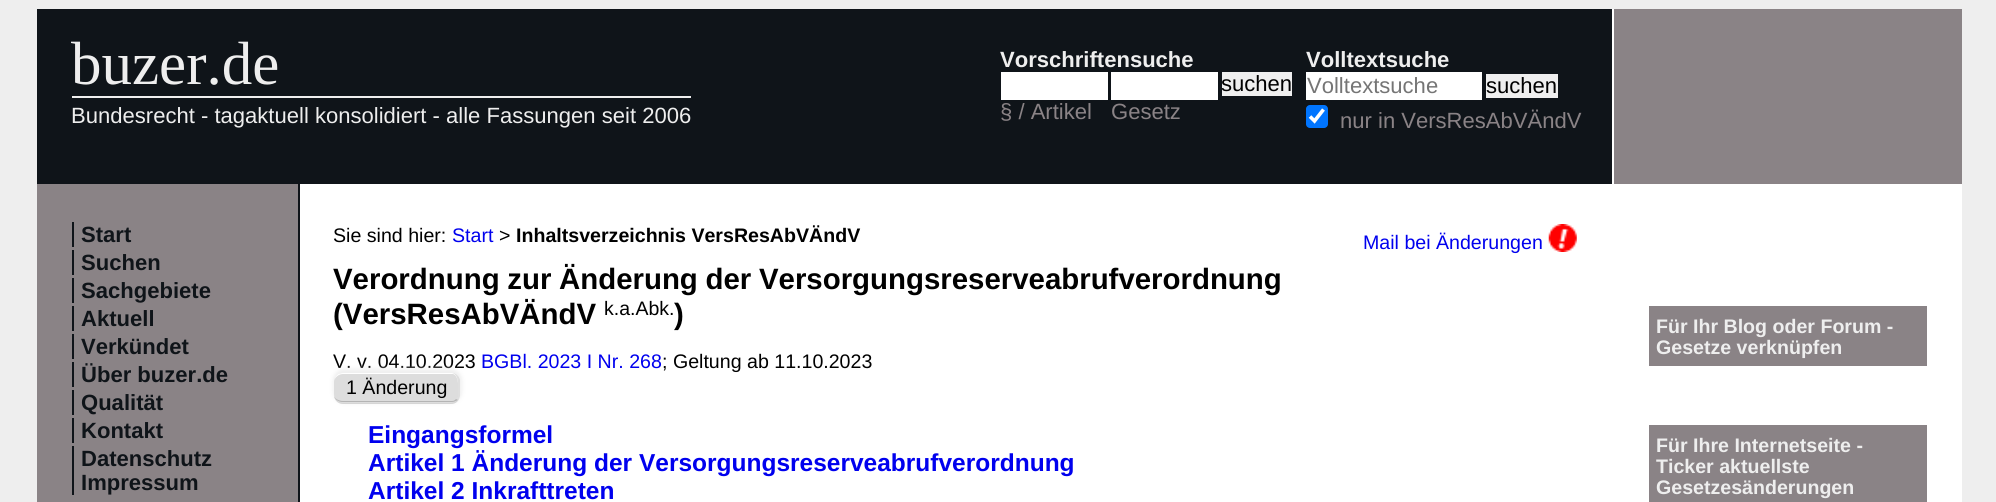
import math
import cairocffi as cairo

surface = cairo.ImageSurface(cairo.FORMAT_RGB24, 1996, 502)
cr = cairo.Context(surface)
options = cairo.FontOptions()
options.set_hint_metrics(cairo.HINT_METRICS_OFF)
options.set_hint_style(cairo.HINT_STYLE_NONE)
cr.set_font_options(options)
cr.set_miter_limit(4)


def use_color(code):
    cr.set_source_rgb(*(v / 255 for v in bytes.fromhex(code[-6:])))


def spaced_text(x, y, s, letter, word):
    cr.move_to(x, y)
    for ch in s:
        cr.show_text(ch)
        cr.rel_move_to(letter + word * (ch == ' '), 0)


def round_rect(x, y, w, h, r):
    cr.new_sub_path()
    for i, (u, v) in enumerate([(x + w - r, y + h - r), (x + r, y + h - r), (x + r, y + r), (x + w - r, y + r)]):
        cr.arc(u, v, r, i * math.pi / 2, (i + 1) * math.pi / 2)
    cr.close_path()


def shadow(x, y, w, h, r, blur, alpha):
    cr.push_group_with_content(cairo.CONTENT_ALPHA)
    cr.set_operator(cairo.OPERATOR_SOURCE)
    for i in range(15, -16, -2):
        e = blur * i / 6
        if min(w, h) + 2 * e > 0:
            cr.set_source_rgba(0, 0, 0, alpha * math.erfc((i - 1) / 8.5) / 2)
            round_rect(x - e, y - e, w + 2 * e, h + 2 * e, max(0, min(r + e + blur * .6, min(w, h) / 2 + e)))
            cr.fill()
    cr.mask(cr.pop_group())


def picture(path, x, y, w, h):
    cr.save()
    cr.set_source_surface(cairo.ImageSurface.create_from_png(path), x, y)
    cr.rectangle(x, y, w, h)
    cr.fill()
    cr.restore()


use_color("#eeeeee")
cr.paint()
use_color("#0f1419")
cr.rectangle(37, 9, 1575, 175)
cr.fill()
cr.select_font_face("Liberation Serif")
cr.set_font_size(61)
use_color("#eeeeee")
cr.move_to(71, 84)
cr.show_text("buzer.de")
cr.select_font_face("Liberation Sans", cairo.FONT_SLANT_NORMAL, cairo.FONT_WEIGHT_BOLD)
cr.set_font_size(22.05)
cr.move_to(1000, 67)
cr.show_text("Vorschriftensuche")
use_color("#efefef")
cr.rectangle(1222, 72, 70, 24)
cr.fill()
cr.save()
cr.rectangle(1222, 72, 70, 24)
cr.clip()
cr.select_font_face("Liberation Sans")
use_color("#000000")
cr.move_to(1221, 91)
cr.show_text("suchen")
cr.restore()
use_color("#ffffff")
cr.rectangle(1001, 72, 107, 28)
cr.fill()
cr.select_font_face("Liberation Sans")
use_color("#8a8386")
cr.move_to(1000, 119)
cr.show_text("§ / Artikel")
use_color("#ffffff")
cr.rectangle(1111, 72, 107, 28)
cr.fill()
use_color("#8a8386")
cr.move_to(1111, 119)
cr.show_text("Gesetz")
cr.select_font_face("Liberation Sans", cairo.FONT_SLANT_NORMAL, cairo.FONT_WEIGHT_BOLD)
use_color("#eeeeee")
cr.move_to(1306, 67)
cr.show_text("Volltextsuche")
use_color("#ffffff")
cr.rectangle(1306, 72, 176, 28)
cr.fill()
cr.select_font_face("Liberation Sans")
use_color("#757575")
cr.move_to(1307, 93)
cr.show_text("Volltextsuche")
use_color("#efefef")
cr.rectangle(1486, 74, 72, 24)
cr.fill()
use_color("#000000")
cr.move_to(1486, 93)
cr.show_text("suchen")
use_color("#0075ff")
round_rect(1306, 105, 22, 23, 4)
cr.fill()
cr.new_path()
cr.move_to(1310, 116.5)
cr.line_to(1314.5, 121)
cr.line_to(1323.5, 109.5)
use_color("#ffffff")
cr.set_line_width(3.6)
cr.stroke()
use_color("#8a8386")
cr.move_to(1340, 128)
cr.show_text("nur in VersResAbVÄndV")
use_color("#eeeeee")
cr.rectangle(72, 96, 619, 2)
cr.fill()
cr.move_to(71, 123)
cr.show_text("Bundesrecht - tagaktuell konsolidiert - alle Fassungen seit 2006")
use_color("#8a8386")
cr.rectangle(1614, 9, 348, 175)
cr.fill()
use_color("#ffffff")
cr.rectangle(1612, 9, 2, 175)
cr.fill()
cr.rectangle(300, 184, 1662, 318)
cr.fill()
use_color("#8a8386")
cr.rectangle(37, 184, 261, 318)
cr.fill()
use_color("#0f1419")
cr.rectangle(298, 184, 2, 318)
cr.fill()
cr.rectangle(72, 222, 2, 25)
cr.fill()
cr.select_font_face("Liberation Sans", cairo.FONT_SLANT_NORMAL, cairo.FONT_WEIGHT_BOLD)
cr.move_to(81, 242)
cr.show_text("Start")
cr.rectangle(72, 250, 2, 25)
cr.fill()
cr.move_to(81, 270)
cr.show_text("Suchen")
cr.rectangle(72, 278, 2, 25)
cr.fill()
cr.move_to(81, 298)
cr.show_text("Sachgebiete")
cr.rectangle(72, 306, 2, 25)
cr.fill()
cr.move_to(81, 326)
cr.show_text("Aktuell")
cr.rectangle(72, 334, 2, 25)
cr.fill()
cr.move_to(81, 354)
cr.show_text("Verkündet")
cr.rectangle(72, 362, 2, 25)
cr.fill()
cr.move_to(81, 382)
cr.show_text("Über buzer.de")
cr.rectangle(72, 390, 2, 25)
cr.fill()
cr.move_to(81, 410)
cr.show_text("Qualität")
cr.rectangle(72, 418, 2, 25)
cr.fill()
cr.move_to(81, 438)
cr.show_text("Kontakt")
cr.rectangle(72, 446, 2, 49)
cr.fill()
cr.move_to(81, 466)
cr.show_text("Datenschutz")
cr.move_to(81, 490)
cr.show_text("Impressum")
cr.select_font_face("Liberation Sans")
cr.set_font_size(19.6)
use_color("#000000")
cr.move_to(333, 242)
cr.show_text("Sie sind hier:")
use_color("#0000ee")
cr.move_to(452, 242)
cr.show_text("Start")
use_color("#000000")
cr.move_to(499, 242)
cr.show_text(">")
cr.select_font_face("Liberation Sans", cairo.FONT_SLANT_NORMAL, cairo.FONT_WEIGHT_BOLD)
cr.move_to(516, 242)
cr.show_text("Inhaltsverzeichnis VersResAbVÄndV")
cr.select_font_face("Liberation Sans")
use_color("#0000ee")
cr.move_to(1363, 249)
cr.show_text("Mail bei Änderungen")
picture("img1.png", 1548, 224, 29, 28)
cr.select_font_face("Liberation Sans", cairo.FONT_SLANT_NORMAL, cairo.FONT_WEIGHT_BOLD)
cr.set_font_size(29.4)
use_color("#000000")
spaced_text(333, 289, "Verordnung zur Änderung der Versorgungsreserveabrufverordnung", 0, -0.5)
cr.move_to(333, 324)
cr.show_text("(VersResAbVÄndV")
cr.select_font_face("Liberation Sans")
cr.set_font_size(19.5)
cr.move_to(604, 315)
cr.show_text("k.a.Abk.")
cr.select_font_face("Liberation Sans", cairo.FONT_SLANT_NORMAL, cairo.FONT_WEIGHT_BOLD)
cr.set_font_size(29.4)
cr.move_to(674, 324)
cr.show_text(")")
cr.select_font_face("Liberation Sans")
cr.set_font_size(19.6)
cr.move_to(333, 368)
cr.show_text("V. v. 04.10.2023")
use_color("#0000ee")
cr.move_to(481, 368)
cr.show_text("BGBl. 2023 I Nr. 268")
use_color("#000000")
cr.move_to(662, 368)
cr.show_text("; Geltung ab 11.10.2023")
use_color("#efefef")
shadow(333, 369, 129, 34, 11, 2, 1)
use_color("#d5d5d5")
cr.new_path()
cr.move_to(334, 382)
cr.line_to(334, 395)
cr.curve_to(334, 400, 338, 404, 343, 404)
cr.line_to(451, 404)
cr.curve_to(456, 404, 459, 401, 460, 396)
cr.curve_to(459, 400, 456, 402, 452, 402)
cr.line_to(343, 402)
cr.curve_to(338, 402, 334, 399, 334, 394)
cr.close_path()
cr.fill()
use_color("#dddddd")
round_rect(334, 373, 126, 30, 9)
cr.fill()
use_color("#ffffff")
cr.new_path()
cr.move_to(343, 374)
cr.line_to(453, 374)
cr.curve_to(460, 376, 458, 391, 458, 396)
cr.line_to(458, 394)
cr.line_to(458, 382)
cr.curve_to(458, 377, 455, 373, 452, 373)
cr.line_to(343, 373)
cr.curve_to(338, 373, 335, 376, 334, 381)
cr.curve_to(335, 377, 339, 374, 343, 374)
cr.close_path()
cr.fill()
use_color("#dfdfdf")
cr.new_path()
cr.move_to(457.5, 400)
cr.line_to(456.5, 398.5)
cr.curve_to(457.5, 397.5, 458, 396, 458, 394)
cr.line_to(458, 382)
cr.curve_to(458, 377, 455, 373, 452, 373)
cr.curve_to(456, 373, 460, 377, 460, 382)
cr.line_to(460, 394)
cr.curve_to(460, 396.5, 459, 398.5, 457.5, 400)
cr.close_path()
cr.fill()
use_color("#b4b4b4")
cr.new_path()
cr.move_to(334, 396)
cr.curve_to(335, 399, 339, 401, 343, 401)
cr.line_to(452, 401)
cr.curve_to(454, 401, 455, 400, 456, 399)
cr.line_to(458, 400)
cr.curve_to(456, 401, 454, 402, 452, 402)
cr.line_to(343, 402)
cr.curve_to(339, 402, 335, 400, 334, 396)
cr.close_path()
cr.fill()
use_color("#000000")
cr.move_to(346, 394)
cr.show_text("1 Änderung")
cr.select_font_face("Liberation Sans", cairo.FONT_SLANT_NORMAL, cairo.FONT_WEIGHT_BOLD)
cr.set_font_size(24.5)
use_color("#0000ee")
cr.move_to(368, 443)
cr.show_text("Eingangsformel")
cr.move_to(368, 471)
cr.show_text("Artikel 1 Änderung der Versorgungsreserveabrufverordnung")
cr.move_to(368, 499)
cr.show_text("Artikel 2 Inkrafttreten")
use_color("#8a8386")
cr.rectangle(1649, 306, 278, 60)
cr.fill()
cr.set_font_size(19.6)
use_color("#eeeeee")
cr.move_to(1656, 333)
cr.show_text("Für Ihr Blog oder Forum -")
cr.move_to(1656, 354)
cr.show_text("Gesetze verknüpfen")
use_color("#8a8386")
cr.rectangle(1649, 425, 278, 77)
cr.fill()
use_color("#eeeeee")
cr.move_to(1656, 452)
cr.show_text("Für Ihre Internetseite -")
cr.move_to(1656, 473)
cr.show_text("Ticker aktuellste")
cr.move_to(1656, 494)
cr.show_text("Gesetzesänderungen")
surface.write_to_png("result.png")
